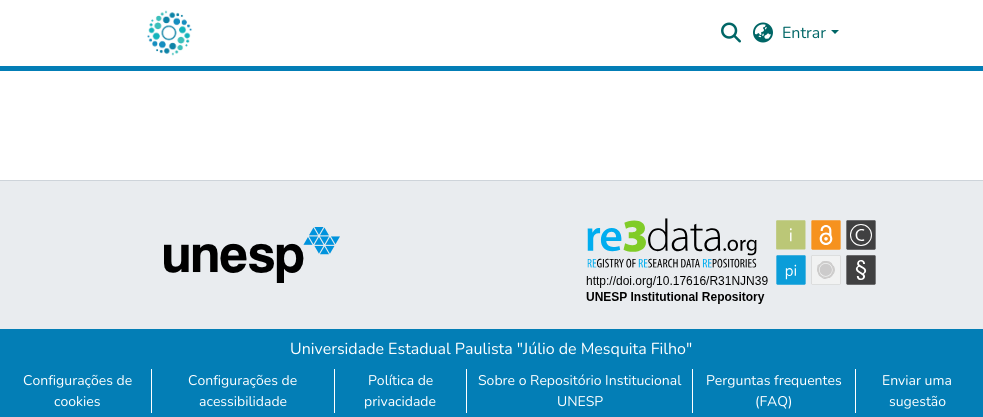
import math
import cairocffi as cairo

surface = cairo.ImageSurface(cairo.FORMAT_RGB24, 983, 417)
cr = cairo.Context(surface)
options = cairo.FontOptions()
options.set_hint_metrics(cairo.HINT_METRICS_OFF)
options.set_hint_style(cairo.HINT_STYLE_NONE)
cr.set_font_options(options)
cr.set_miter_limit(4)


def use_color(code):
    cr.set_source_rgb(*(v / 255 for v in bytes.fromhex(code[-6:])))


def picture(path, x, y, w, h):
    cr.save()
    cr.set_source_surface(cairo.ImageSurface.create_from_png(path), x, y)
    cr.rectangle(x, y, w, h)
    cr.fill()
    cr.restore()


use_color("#ffffff")
cr.paint()
use_color("#037eb6")
cr.rectangle(0, 66, 983, 5)
cr.fill()
picture("img1.png", 147, 10, 46, 46)
picture("img2.png", 721, 22, 20, 21)
picture("img3.png", 753, 22, 20, 21)
cr.select_font_face("Nunito")
cr.set_font_size(16)
use_color("#006666")
cr.move_to(782, 38)
cr.show_text("Entrar")
cr.new_path()
cr.move_to(831, 30)
cr.line_to(839, 30)
cr.line_to(835, 34)
cr.close_path()
cr.fill()
use_color("#037eb6")
cr.rectangle(0, 329, 983, 88)
cr.fill()
use_color("#ced4da")
cr.rectangle(0, 180, 983, 1)
cr.fill()
use_color("#e9ecef")
cr.rectangle(0, 181, 983, 148)
cr.fill()
picture("img4.png", 164, 227, 176, 56)
picture("img5.png", 586, 218, 290, 86)
use_color("#ffffff")
cr.move_to(290, 354)
cr.show_text("Universidade Estadual Paulista \"Júlio de Mesquita Filho\"")
cr.set_font_size(14)
cr.move_to(23, 385)
cr.show_text("Configurações de")
cr.move_to(54, 406)
cr.show_text("cookies")
cr.rectangle(151, 369, 1, 44)
cr.fill()
cr.move_to(188, 385)
cr.show_text("Configurações de")
cr.move_to(199, 406)
cr.show_text("acessibilidade")
cr.rectangle(334, 369, 1, 44)
cr.fill()
cr.move_to(368, 385)
cr.show_text("Política de")
cr.move_to(364, 406)
cr.show_text("privacidade")
cr.rectangle(466, 369, 1, 44)
cr.fill()
cr.move_to(478, 385)
cr.show_text("Sobre o Repositório Institucional")
cr.move_to(557, 406)
cr.show_text("UNESP")
cr.rectangle(692, 369, 1, 44)
cr.fill()
cr.move_to(706, 385)
cr.show_text("Perguntas frequentes")
cr.move_to(755, 406)
cr.show_text("(FAQ)")
cr.rectangle(855, 369, 1, 44)
cr.fill()
cr.move_to(882, 385)
cr.show_text("Enviar uma")
cr.move_to(889, 406)
cr.show_text("sugestão")
surface.write_to_png("result.png")
